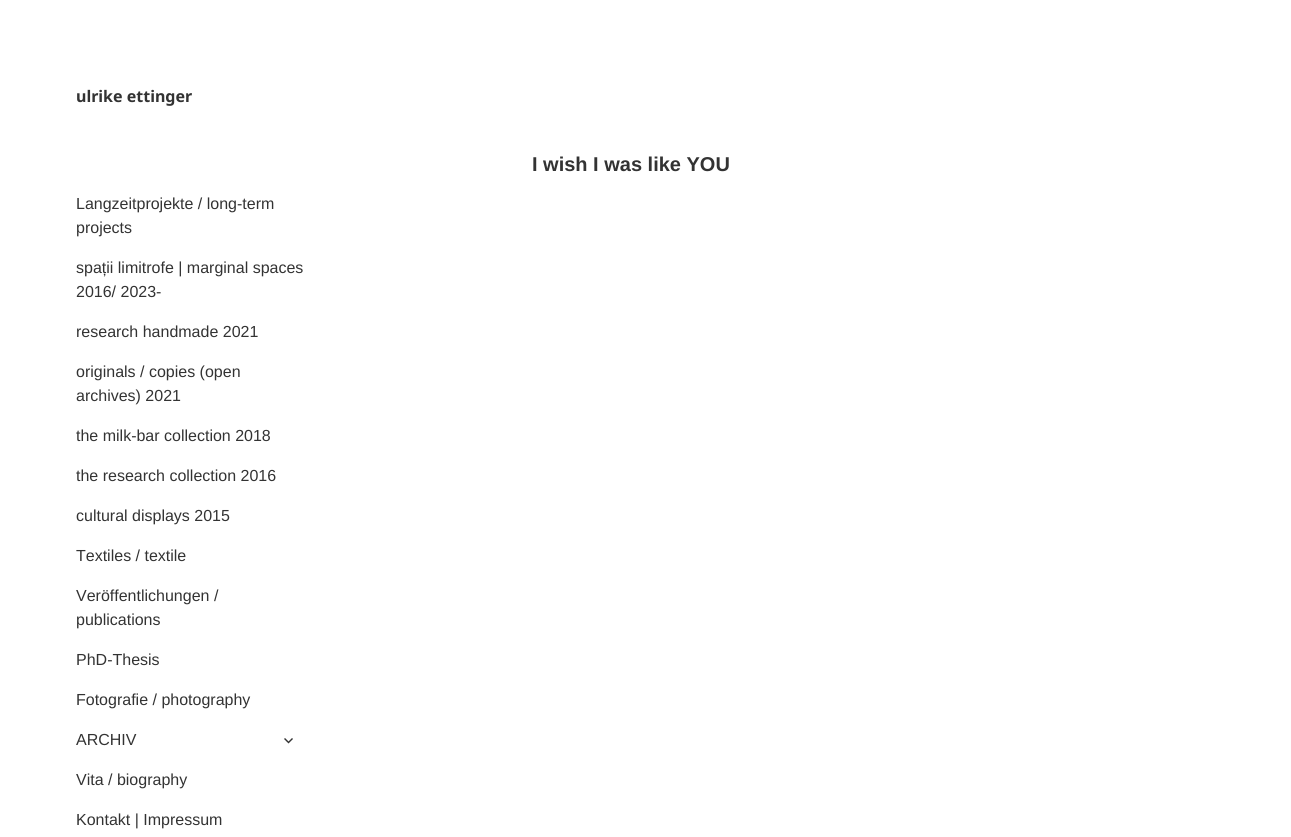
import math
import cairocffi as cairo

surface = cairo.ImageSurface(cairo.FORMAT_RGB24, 1291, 837)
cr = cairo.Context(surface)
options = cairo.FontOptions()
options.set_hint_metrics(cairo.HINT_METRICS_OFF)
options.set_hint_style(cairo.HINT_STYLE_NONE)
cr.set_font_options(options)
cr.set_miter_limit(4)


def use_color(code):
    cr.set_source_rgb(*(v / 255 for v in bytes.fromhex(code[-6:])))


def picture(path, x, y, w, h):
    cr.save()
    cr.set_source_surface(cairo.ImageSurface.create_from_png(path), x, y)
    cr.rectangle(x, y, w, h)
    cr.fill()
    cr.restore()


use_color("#ffffff")
cr.paint()
cr.select_font_face("Noto Sans", cairo.FONT_SLANT_NORMAL, cairo.FONT_WEIGHT_BOLD)
cr.set_font_size(16)
use_color("#333333")
cr.move_to(76, 102)
cr.show_text("ulrike ettinger")
cr.select_font_face("Liberation Sans")
cr.move_to(76, 209)
cr.show_text("Langzeitprojekte / long-term")
cr.move_to(76, 233)
cr.show_text("projects")
cr.move_to(76, 273)
cr.show_text("spații limitrofe | marginal spaces")
cr.move_to(76, 297)
cr.show_text("2016/ 2023-")
cr.move_to(76, 337)
cr.show_text("research handmade 2021")
cr.move_to(76, 377)
cr.show_text("originals / copies (open")
cr.move_to(76, 401)
cr.show_text("archives) 2021")
cr.move_to(76, 441)
cr.show_text("the milk-bar collection 2018")
cr.move_to(76, 481)
cr.show_text("the research collection 2016")
cr.move_to(76, 521)
cr.show_text("cultural displays 2015")
cr.move_to(76, 561)
cr.show_text("Textiles / textile")
cr.move_to(76, 601)
cr.show_text("Veröffentlichungen /")
cr.move_to(76, 625)
cr.show_text("publications")
cr.move_to(76, 665)
cr.show_text("PhD-Thesis")
cr.move_to(76, 705)
cr.show_text("Fotografie / photography")
cr.move_to(76, 745)
cr.show_text("ARCHIV")
picture("img1.png", 284, 738, 9, 6)
cr.move_to(76, 785)
cr.show_text("Vita / biography")
cr.move_to(76, 825)
cr.show_text("Kontakt | Impressum")
cr.select_font_face("Liberation Sans", cairo.FONT_SLANT_NORMAL, cairo.FONT_WEIGHT_BOLD)
cr.set_font_size(20)
cr.move_to(532, 171)
cr.show_text("I wish I was like YOU")
surface.write_to_png("result.png")
